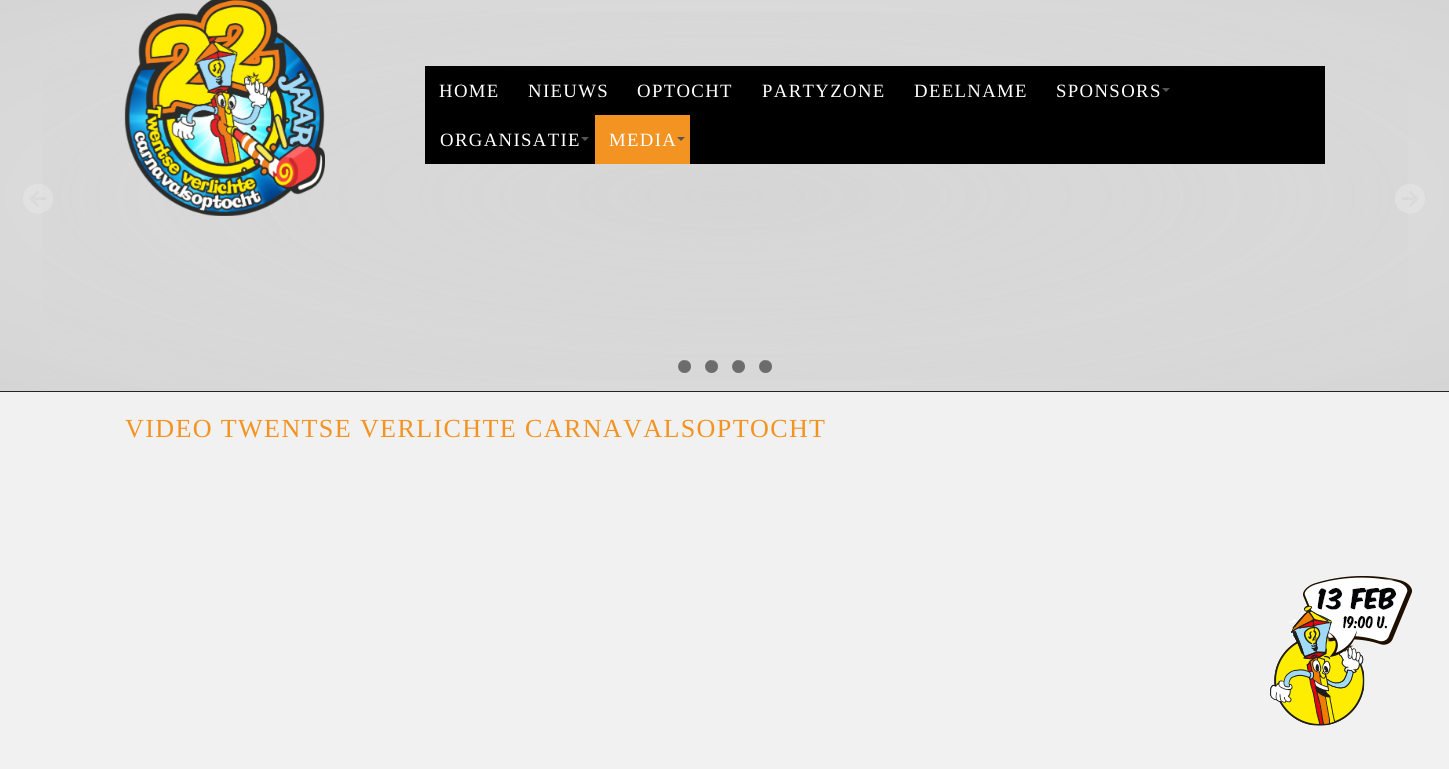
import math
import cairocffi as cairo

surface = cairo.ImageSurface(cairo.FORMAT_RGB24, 1449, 769)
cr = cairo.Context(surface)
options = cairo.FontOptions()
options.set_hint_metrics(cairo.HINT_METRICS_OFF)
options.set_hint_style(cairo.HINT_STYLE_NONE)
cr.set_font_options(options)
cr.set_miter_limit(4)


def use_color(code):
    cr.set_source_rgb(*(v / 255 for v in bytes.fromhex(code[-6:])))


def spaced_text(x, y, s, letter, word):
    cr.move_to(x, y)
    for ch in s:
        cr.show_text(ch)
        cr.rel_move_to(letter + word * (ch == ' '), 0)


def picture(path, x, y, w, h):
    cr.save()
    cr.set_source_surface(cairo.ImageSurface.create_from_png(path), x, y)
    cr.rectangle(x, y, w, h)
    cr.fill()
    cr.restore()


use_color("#f1f1f1")
cr.paint()
use_color("#242424")
cr.rectangle(0, 391, 1449, 1)
cr.fill()
gradient = cairo.RadialGradient(0, 0, 0, 0, 0, 1)
gradient.set_matrix(cairo.Matrix(1 / 1025, 0, 0, 1 / 276, -1 * 725 / 1025, -1 * 196 / 276))
gradient.add_color_stop_rgba(0, 0.902, 0.902, 0.902, 1)
gradient.add_color_stop_rgba(0.47, 0.867, 0.867, 0.867, 1)
gradient.add_color_stop_rgba(1, 0.835, 0.835, 0.835, 1)
cr.set_source(gradient)
cr.rectangle(0, 0, 1449, 391)
cr.fill()
gradient = cairo.RadialGradient(0, 0, 0, 0, 0, 1)
gradient.set_matrix(cairo.Matrix(1 / 1025, 0, 0, 1 / 276, -1 * 725 / 1025, -1 * 196 / 276))
gradient.add_color_stop_rgba(0, 0.769, 0.769, 0.769, 0.5)
gradient.add_color_stop_rgba(1, 0.859, 0.859, 0.859, 0.2)
cr.set_source(gradient)
cr.rectangle(42, 12, 1366, 368)
cr.fill()
picture("img1.png", 23, 184, 30, 30)
picture("img2.png", 1395, 184, 30, 30)
picture("img3.png", 678, 360, 13, 13)
picture("img4.png", 705, 360, 13, 13)
picture("img5.png", 732, 360, 13, 13)
picture("img6.png", 759, 360, 13, 13)
picture("img7.png", 124, 0, 201, 216)
use_color("#000000")
cr.rectangle(425, 66, 900, 98)
cr.fill()
cr.select_font_face("Liberation Serif")
cr.set_font_size(18.75)
use_color("#ffffff")
spaced_text(439, 97, "HOME", 1.35, 0)
spaced_text(528, 97, "NIEUWS", 1.35, 0)
spaced_text(637, 97, "OPTOCHT", 1.35, 0)
spaced_text(762, 97, "PARTYZONE", 1.35, 0)
spaced_text(914, 97, "DEELNAME", 1.35, 0)
spaced_text(1056, 97, "SPONSORS", 1.35, 0)
use_color("#555555")
cr.new_path()
cr.move_to(1162, 88)
cr.line_to(1170, 88)
cr.line_to(1166, 92)
cr.close_path()
cr.fill()
use_color("#ffffff")
spaced_text(440, 146, "ORGANISATIE", 1.35, 0)
use_color("#555555")
cr.new_path()
cr.move_to(581, 137)
cr.line_to(589, 137)
cr.line_to(585, 141)
cr.close_path()
cr.fill()
use_color("#f29322")
cr.rectangle(595, 115, 95, 49)
cr.fill()
use_color("#ffffff")
spaced_text(609, 146, "MEDIA", 1.35, 0)
use_color("#555555")
cr.new_path()
cr.move_to(677, 137)
cr.line_to(685, 137)
cr.line_to(681, 141)
cr.close_path()
cr.fill()
cr.set_font_size(26.1)
use_color("#f29322")
spaced_text(125, 437, "VIDEO TWENTSE VERLICHTE CARNAVALSOPTOCHT", 1.35, 0)
picture("img8.png", 1270, 576, 142, 150)
surface.write_to_png("result.png")
